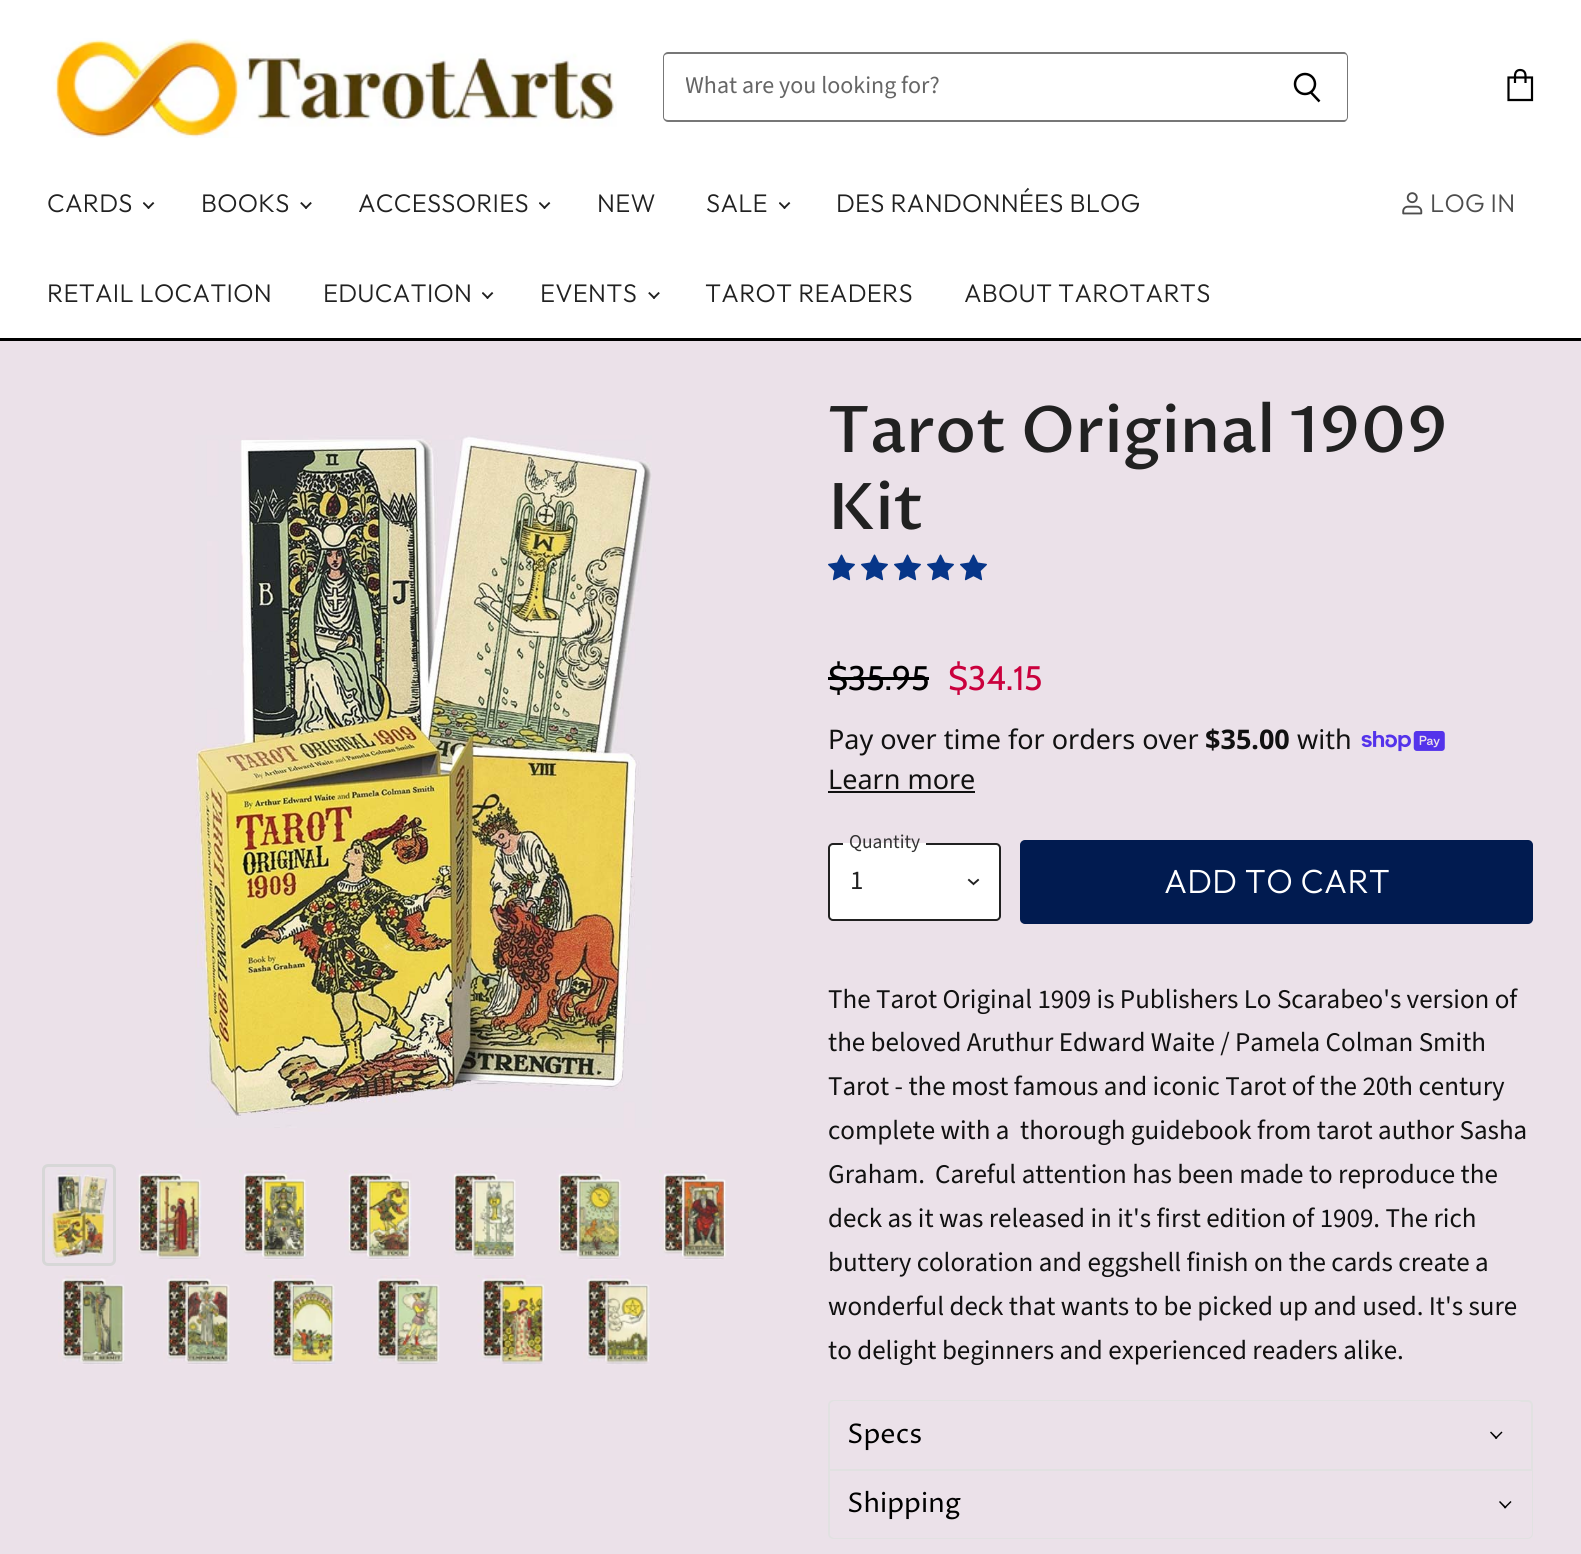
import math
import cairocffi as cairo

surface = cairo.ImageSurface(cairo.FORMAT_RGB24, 1581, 1554)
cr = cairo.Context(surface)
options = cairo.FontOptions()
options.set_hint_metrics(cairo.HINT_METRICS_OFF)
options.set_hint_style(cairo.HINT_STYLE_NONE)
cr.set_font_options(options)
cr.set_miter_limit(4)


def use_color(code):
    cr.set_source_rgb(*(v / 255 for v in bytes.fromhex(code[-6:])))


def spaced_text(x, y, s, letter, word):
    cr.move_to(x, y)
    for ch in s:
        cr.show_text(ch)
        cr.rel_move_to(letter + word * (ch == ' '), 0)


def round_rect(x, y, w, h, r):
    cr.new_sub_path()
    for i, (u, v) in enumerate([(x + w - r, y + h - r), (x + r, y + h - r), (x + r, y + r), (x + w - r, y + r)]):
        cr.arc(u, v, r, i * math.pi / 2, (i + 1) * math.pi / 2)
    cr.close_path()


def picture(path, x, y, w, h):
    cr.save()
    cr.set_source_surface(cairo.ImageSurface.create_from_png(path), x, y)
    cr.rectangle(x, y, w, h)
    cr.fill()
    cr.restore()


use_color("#ebe1e9")
cr.paint()
use_color("#ffffff")
cr.rectangle(0, 0, 1581, 338)
cr.fill()
use_color("#000000")
cr.rectangle(0, 338, 1581, 3)
cr.fill()
picture("img1.png", 51, 38, 566, 100)
use_color("#777777")
cr.set_fill_rule(cairo.FILL_RULE_EVEN_ODD)
cr.new_path()
cr.move_to(668, 52)
cr.line_to(1269, 52)
cr.line_to(1269, 122)
cr.line_to(668, 122)
cr.curve_to(665, 122, 663, 119, 663, 117)
cr.line_to(663, 57)
cr.curve_to(663, 55, 665, 52, 668, 52)
cr.close_path()
cr.move_to(668, 54)
cr.line_to(1269, 54)
cr.line_to(1269, 120)
cr.line_to(668, 120)
cr.curve_to(666, 120, 664, 119, 664, 117)
cr.line_to(664, 57)
cr.curve_to(664, 55, 666, 54, 668, 54)
cr.close_path()
cr.fill()
cr.save()
cr.set_fill_rule(cairo.FILL_RULE_WINDING)
cr.rectangle(686, 69, 562, 33)
cr.clip()
cr.select_font_face("Source Sans Pro")
cr.set_font_size(24)
use_color("#666666")
cr.move_to(685, 93)
cr.show_text("What are you looking for?")
cr.restore()
cr.new_path()
cr.move_to(1269, 52)
cr.line_to(1344, 52)
cr.curve_to(1346, 52, 1348, 55, 1348, 57)
cr.line_to(1348, 117)
cr.curve_to(1348, 119, 1346, 122, 1344, 122)
cr.line_to(1269, 122)
cr.close_path()
cr.move_to(1269, 54)
cr.line_to(1344, 54)
cr.curve_to(1346, 54, 1347, 55, 1347, 57)
cr.line_to(1347, 117)
cr.curve_to(1347, 119, 1346, 120, 1344, 120)
cr.line_to(1269, 120)
cr.close_path()
cr.fill()
cr.new_path()
cr.move_to(1319.5, 101.5)
cr.line_to(1311, 92.5)
use_color("#000000")
cr.set_line_width(2.5)
cr.stroke()
cr.arc(1305, 84, 10, 0, 2 * math.pi)
cr.stroke()
cr.new_path()
cr.move_to(1508.5, 77.5)
cr.line_to(1532, 77.5)
cr.line_to(1532, 100)
cr.line_to(1508.5, 100)
cr.close_path()
cr.move_to(1525.5, 83)
cr.line_to(1525.5, 76)
cr.curve_to(1525.5, 71.5, 1523, 70, 1520, 70)
cr.curve_to(1517.5, 70, 1515, 71.5, 1515, 76)
cr.line_to(1515, 83)
cr.set_line_width(2.2)
cr.stroke()
cr.select_font_face("Outfit Light")
cr.set_font_size(25.5)
use_color("#212121")
spaced_text(47, 212, "CARDS", 0.25, 0)
picture("img2.png", 143, 202, 12, 7)
spaced_text(201, 212, "BOOKS", 0.25, 0)
picture("img3.png", 300, 202, 12, 7)
spaced_text(358, 212, "ACCESSORIES", 0.25, 0)
picture("img2.png", 539, 202, 12, 7)
spaced_text(597, 212, "NEW", 0.25, 0)
spaced_text(706, 212, "SALE", 0.25, 0)
picture("img2.png", 779, 202, 12, 7)
spaced_text(836, 212, "DES RANDONNÉES BLOG", 0.25, 0)
spaced_text(47, 302, "RETAIL LOCATION", 0.25, 0)
spaced_text(323, 302, "EDUCATION", 0.25, 0)
picture("img2.png", 482, 292, 12, 7)
spaced_text(540, 302, "EVENTS", 0.25, 0)
picture("img3.png", 648, 292, 12, 7)
spaced_text(705, 302, "TAROT READERS", 0.25, 0)
spaced_text(964, 302, "ABOUT TAROTARTS", 0.25, 0)
picture("img4.png", 1402, 192, 21, 23)
use_color("#4d4d4d")
spaced_text(1430, 212, "LOG IN", 0.25, 0)
picture("img5.png", 195, 435, 457, 693)
round_rect(43.5, 1165.5, 71, 99, 4.5)
use_color("#d7d7d7")
cr.set_line_width(3)
cr.stroke()
picture("img6.png", 48, 1170, 61, 90)
picture("img7.png", 136, 1170, 66, 89)
picture("img8.png", 239, 1170, 68, 90)
picture("img9.png", 344, 1170, 68, 90)
picture("img10.png", 449, 1170, 67, 90)
picture("img11.png", 556, 1170, 66, 90)
picture("img12.png", 659, 1170, 68, 90)
picture("img13.png", 58, 1275, 67, 90)
picture("img14.png", 163, 1275, 67, 90)
picture("img15.png", 267, 1275, 69, 90)
picture("img16.png", 373, 1275, 67, 89)
picture("img17.png", 477, 1275, 68, 90)
picture("img18.png", 583, 1275, 67, 90)
cr.select_font_face("Proza Libre Medium")
cr.set_font_size(64.25)
use_color("#212121")
cr.move_to(828, 452)
cr.show_text("Tarot Original 1909")
cr.move_to(828, 529)
cr.show_text("Kit")
picture("img19.png", 828, 554, 27, 27)
picture("img19.png", 861, 554, 27, 27)
picture("img19.png", 894, 554, 27, 27)
picture("img19.png", 927, 554, 27, 27)
picture("img19.png", 960, 554, 27, 27)
cr.select_font_face("Cabin")
cr.set_font_size(34)
use_color("#000000")
cr.move_to(828, 690)
cr.show_text("$35.95")
cr.rectangle(828, 677, 101, 3)
cr.fill()
use_color("#ca003d")
cr.move_to(948, 690)
cr.show_text("$34.15")
cr.select_font_face("Noto Sans")
cr.set_font_size(27)
use_color("#111111")
cr.move_to(828, 749)
cr.show_text("Pay over time for orders over")
cr.select_font_face("Noto Sans", cairo.FONT_SLANT_NORMAL, cairo.FONT_WEIGHT_BOLD)
cr.move_to(1205, 749)
cr.show_text("$35.00")
cr.select_font_face("Noto Sans")
cr.move_to(1297, 749)
cr.show_text("with")
picture("img20.png", 1361, 731, 84, 21)
cr.move_to(828, 789)
cr.show_text("Learn more")
cr.rectangle(828, 791, 147, 2)
cr.fill()
use_color("#ffffff")
round_rect(829, 844, 171, 76, 4)
cr.fill_preserve()
use_color("#212121")
cr.set_line_width(2)
cr.stroke()
use_color("#ffffff")
cr.rectangle(843, 843, 83, 2)
cr.fill()
cr.select_font_face("Source Sans Pro")
cr.set_font_size(19.5)
use_color("#333333")
cr.move_to(849, 848)
cr.show_text("Quantity")
cr.set_font_size(27)
use_color("#212121")
cr.move_to(850, 889)
cr.show_text("1")
cr.new_path()
cr.move_to(973.5, 884)
cr.line_to(978, 880)
cr.move_to(973.5, 884)
cr.line_to(969, 880)
cr.set_line_width(1.9)
cr.set_line_cap(cairo.LINE_CAP_SQUARE)
cr.stroke()
use_color("#011b50")
round_rect(1021, 841, 511, 82, 4)
cr.fill_preserve()
cr.set_line_width(2)
cr.set_line_cap(cairo.LINE_CAP_BUTT)
cr.stroke()
cr.select_font_face("Outfit Light")
cr.set_font_size(33.5)
use_color("#ffffff")
spaced_text(1164, 893, "ADD TO CART", 0.25, 0)
cr.select_font_face("Source Sans Pro")
cr.set_font_size(27)
use_color("#111111")
cr.move_to(828, 1008)
cr.show_text("The Tarot Original 1909 is Publishers Lo Scarabeo's version of")
cr.move_to(828, 1051)
cr.show_text("the beloved Aruthur Edward Waite / Pamela Colman Smith")
cr.move_to(828, 1095)
cr.show_text("Tarot - the most famous and iconic Tarot of the 20th century")
cr.move_to(828, 1139)
cr.show_text("complete with a")
cr.move_to(1020, 1139)
cr.show_text("thorough guidebook from tarot author Sasha")
cr.move_to(828, 1183)
cr.show_text("Graham.")
cr.move_to(935, 1183)
cr.show_text("Careful attention has been made to reproduce the")
cr.move_to(828, 1227)
cr.show_text("deck as it was released in it's first edition of 1909. The rich")
cr.move_to(828, 1271)
cr.show_text("buttery coloration and eggshell finish on the cards create a")
cr.move_to(828, 1315)
cr.show_text("wonderful deck that wants to be picked up and used. It's sure")
cr.move_to(828, 1359)
cr.show_text("to delight beginners and experienced readers alike.")
round_rect(829, 1401, 703, 137, 4)
use_color("#e1e1e1")
cr.stroke()
use_color("#ebe1e9")
cr.new_path()
cr.move_to(835, 1401)
cr.line_to(1518, 1401)
cr.curve_to(1521, 1401, 1523, 1403, 1523, 1406)
cr.line_to(1523, 1469)
cr.line_to(830, 1469)
cr.line_to(830, 1406)
cr.curve_to(830, 1403, 832, 1401, 835, 1401)
cr.close_path()
cr.fill()
cr.select_font_face("Proza Libre")
use_color("#000000")
cr.move_to(847, 1443)
cr.show_text("Specs")
cr.set_fill_rule(cairo.FILL_RULE_WINDING)
cr.new_path()
cr.move_to(1501.5, 1431.5)
cr.line_to(1502.5, 1432.5)
cr.line_to(1496, 1439)
cr.line_to(1495, 1438)
cr.close_path()
cr.fill()
cr.new_path()
cr.move_to(1491, 1431.5)
cr.line_to(1497.5, 1438)
cr.line_to(1496, 1439)
cr.line_to(1490, 1432.5)
cr.close_path()
cr.fill()
use_color("#ebe1e9")
cr.new_path()
cr.move_to(830, 1470)
cr.line_to(1532, 1470)
cr.line_to(1532, 1533)
cr.curve_to(1532, 1536, 1530, 1538, 1527, 1538)
cr.line_to(835, 1538)
cr.curve_to(832, 1538, 830, 1536, 830, 1533)
cr.close_path()
cr.fill()
use_color("#e1e1e1")
cr.rectangle(830, 1469, 702, 2)
cr.fill()
use_color("#000000")
cr.move_to(847, 1512)
cr.show_text("Shipping")
cr.new_path()
cr.move_to(1510.5, 1501)
cr.line_to(1511.5, 1502)
cr.line_to(1505, 1508.5)
cr.line_to(1504, 1507.5)
cr.close_path()
cr.fill()
cr.new_path()
cr.move_to(1500, 1501)
cr.line_to(1506.5, 1507.5)
cr.line_to(1505, 1508.5)
cr.line_to(1499, 1502)
cr.close_path()
cr.fill()
surface.write_to_png("result.png")
